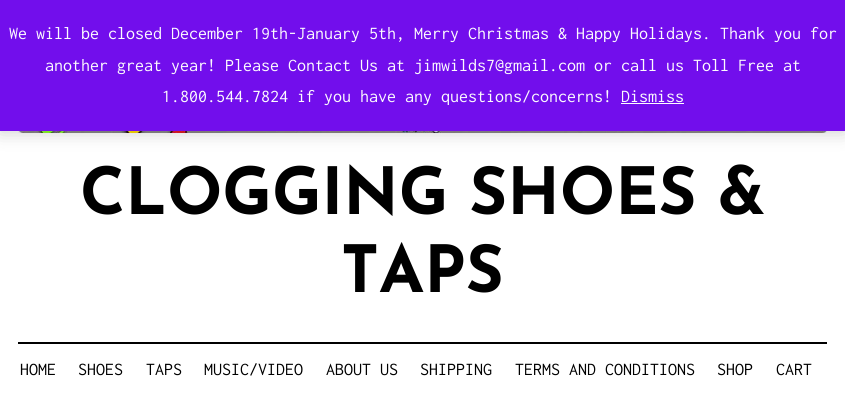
import math
import cairocffi as cairo

surface = cairo.ImageSurface(cairo.FORMAT_RGB24, 845, 397)
cr = cairo.Context(surface)
options = cairo.FontOptions()
options.set_hint_metrics(cairo.HINT_METRICS_OFF)
options.set_hint_style(cairo.HINT_STYLE_NONE)
cr.set_font_options(options)
cr.set_miter_limit(4)


def use_color(code):
    cr.set_source_rgb(*(v / 255 for v in bytes.fromhex(code[-6:])))


def round_rect(x, y, w, h, r):
    cr.new_sub_path()
    for i, (u, v) in enumerate([(x + w - r, y + h - r), (x + r, y + h - r), (x + r, y + r), (x + w - r, y + r)]):
        cr.arc(u, v, r, i * math.pi / 2, (i + 1) * math.pi / 2)
    cr.close_path()


def shadow(x, y, w, h, r, blur, alpha):
    cr.push_group_with_content(cairo.CONTENT_ALPHA)
    cr.set_operator(cairo.OPERATOR_SOURCE)
    for i in range(15, -16, -2):
        e = blur * i / 6
        if min(w, h) + 2 * e > 0:
            cr.set_source_rgba(0, 0, 0, alpha * math.erfc((i - 1) / 8.5) / 2)
            round_rect(x - e, y - e, w + 2 * e, h + 2 * e, max(0, min(r + e + blur * .6, min(w, h) / 2 + e)))
            cr.fill()
    cr.mask(cr.pop_group())


def picture(path, x, y, w, h):
    cr.save()
    cr.set_source_surface(cairo.ImageSurface.create_from_png(path), x, y)
    cr.rectangle(x, y, w, h)
    cr.fill()
    cr.restore()


use_color("#ffffff")
cr.paint()
picture("img1.png", 18, 131, 809, 2)
use_color("#000000")
shadow(0, 1, 845, 131, 0, 9, 0.2)
use_color("#720eec")
cr.rectangle(0, 0, 845, 131)
cr.fill()
cr.select_font_face("Inconsolata")
cr.set_font_size(18)
use_color("#fcfbfe")
cr.move_to(9, 39)
cr.show_text("We will be closed December 19th-January 5th, Merry Christmas & Happy Holidays. Thank you for")
cr.move_to(45, 71)
cr.show_text("another great year! Please Contact Us at jimwilds7@gmail.com or call us Toll Free at")
cr.move_to(162, 102)
cr.show_text("1.800.544.7824 if you have any questions/concerns! Dismiss")
cr.rectangle(621, 103, 63, 1)
cr.fill()
cr.select_font_face("Josefin Sans", cairo.FONT_SLANT_NORMAL, cairo.FONT_WEIGHT_BOLD)
cr.set_font_size(65)
use_color("#000000")
cr.move_to(80, 214)
cr.show_text("CLOGGING SHOES &")
cr.move_to(341, 292)
cr.show_text("TAPS")
cr.rectangle(18, 342, 809, 2)
cr.fill()
cr.select_font_face("Inconsolata")
cr.set_font_size(18)
cr.move_to(20, 375)
cr.show_text("HOME")
cr.move_to(78, 375)
cr.show_text("SHOES")
cr.move_to(146, 375)
cr.show_text("TAPS")
cr.move_to(204, 375)
cr.show_text("MUSIC/VIDEO")
cr.move_to(326, 375)
cr.show_text("ABOUT US")
cr.move_to(420, 375)
cr.show_text("SHIPPING")
cr.move_to(515, 375)
cr.show_text("TERMS AND CONDITIONS")
cr.move_to(717, 375)
cr.show_text("SHOP")
cr.move_to(776, 375)
cr.show_text("CART")
surface.write_to_png("result.png")
